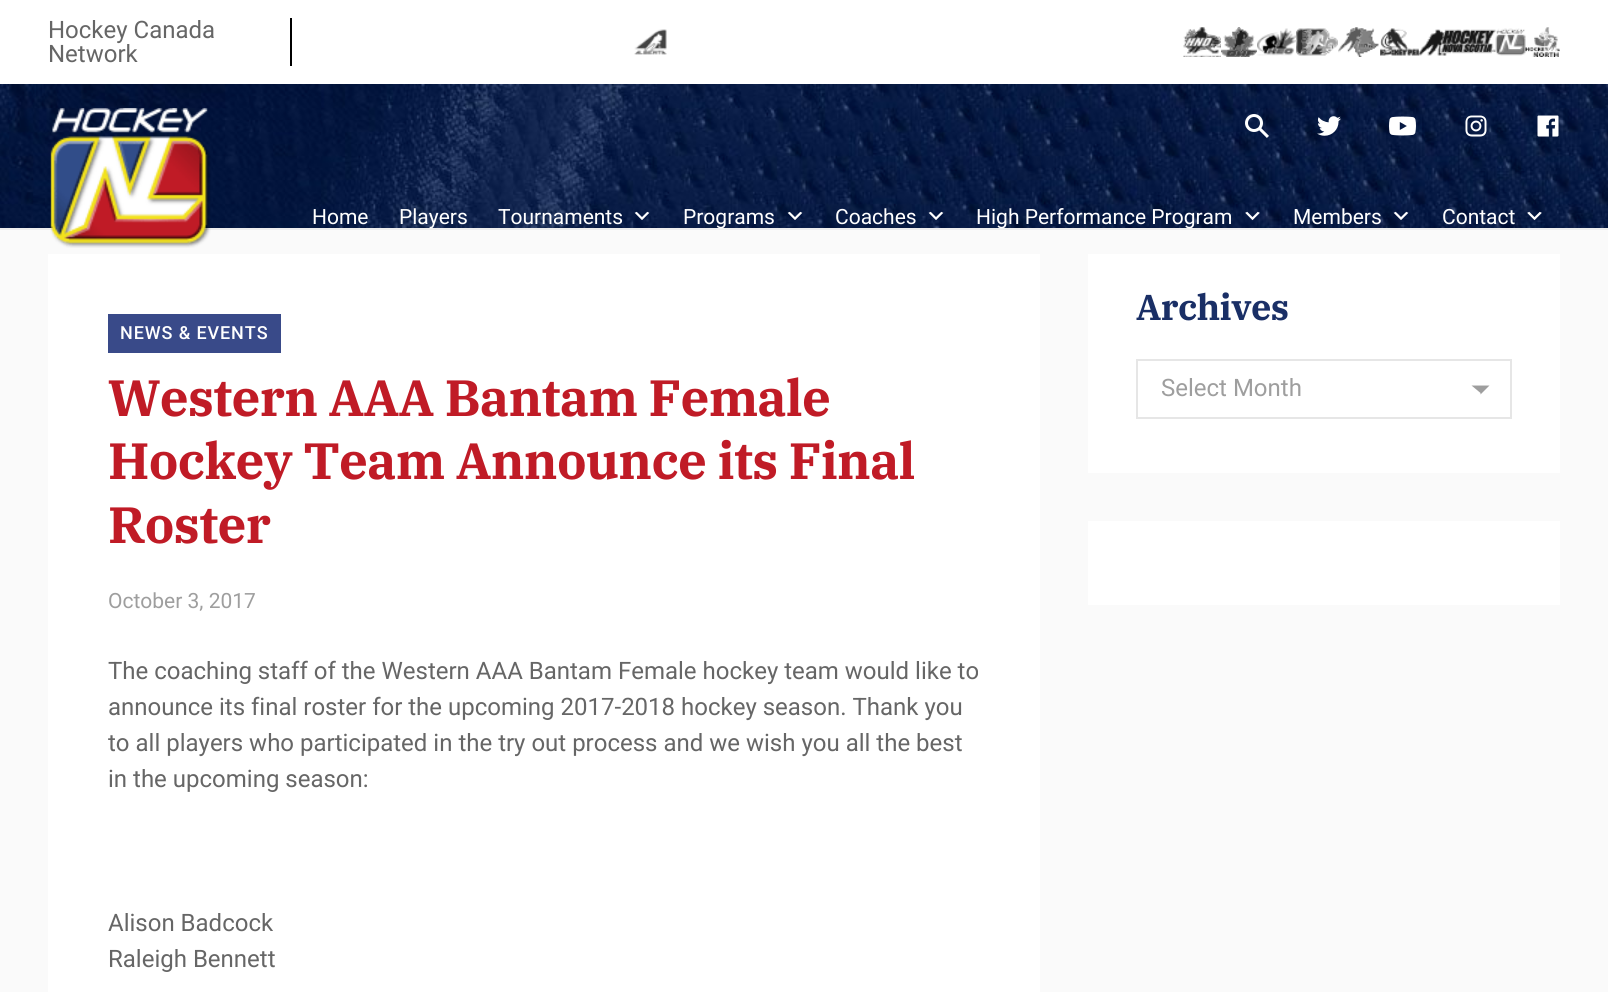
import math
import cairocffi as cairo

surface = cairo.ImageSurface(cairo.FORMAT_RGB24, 1608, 992)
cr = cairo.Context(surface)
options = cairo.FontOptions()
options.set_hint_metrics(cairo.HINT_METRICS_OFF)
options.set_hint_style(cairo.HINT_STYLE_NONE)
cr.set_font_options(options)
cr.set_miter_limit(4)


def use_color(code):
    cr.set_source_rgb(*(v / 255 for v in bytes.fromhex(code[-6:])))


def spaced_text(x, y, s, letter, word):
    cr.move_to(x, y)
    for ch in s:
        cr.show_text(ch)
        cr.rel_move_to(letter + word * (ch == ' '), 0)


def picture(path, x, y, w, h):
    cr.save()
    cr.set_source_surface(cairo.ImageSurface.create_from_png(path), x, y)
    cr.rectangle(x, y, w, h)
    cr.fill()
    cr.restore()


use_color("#fafafa")
cr.paint()
use_color("#ffffff")
cr.rectangle(0, 0, 1608, 84)
cr.fill()
use_color("#000000")
cr.rectangle(290, 18, 2, 48)
cr.fill()
cr.select_font_face("Roboto")
cr.set_font_size(24)
use_color("#666666")
cr.move_to(48, 38)
cr.show_text("Hockey Canada")
cr.move_to(48, 62)
cr.show_text("Network")
picture("img1.png", 634, 29, 33, 26)
picture("img2.png", 1183, 27, 38, 30)
picture("img3.png", 1221, 27, 36, 30)
picture("img4.png", 1257, 28, 39, 28)
picture("img5.png", 1296, 28, 42, 28)
picture("img6.png", 1338, 27, 41, 30)
picture("img7.png", 1380, 28, 39, 28)
picture("img8.png", 1419, 29, 77, 27)
picture("img9.png", 1495, 28, 31, 28)
picture("img10.png", 1525, 27, 35, 30)
picture("img11.png", 0, 84, 1608, 144)
use_color("#eeeeee")
cr.rectangle(0, 228, 1608, 2)
cr.fill()
picture("img12.png", 50, 108, 161, 140)
picture("img13.png", 1245, 114, 24, 24)
picture("img14.png", 1317, 116, 24, 20)
picture("img15.png", 1389, 116, 27, 20)
picture("img16.png", 1465, 115, 22, 22)
picture("img17.png", 1537, 115, 22, 22)
cr.set_font_size(21)
use_color("#ffffff")
cr.move_to(312, 224)
cr.show_text("Home")
cr.move_to(399, 224)
cr.show_text("Players")
cr.move_to(498, 224)
cr.show_text("Tournaments")
picture("img18.png", 634, 211, 16, 9)
cr.move_to(683, 224)
cr.show_text("Programs")
picture("img19.png", 787, 211, 16, 9)
cr.move_to(835, 224)
cr.show_text("Coaches")
picture("img20.png", 928, 211, 16, 9)
cr.move_to(976, 224)
cr.show_text("High Performance Program")
picture("img21.png", 1245, 211, 15, 10)
cr.move_to(1293, 224)
cr.show_text("Members")
picture("img22.png", 1393, 211, 16, 9)
cr.move_to(1442, 224)
cr.show_text("Contact")
picture("img23.png", 1527, 211, 15, 10)
cr.rectangle(48, 254, 992, 738)
cr.fill()
use_color("#394a89")
cr.rectangle(108, 314, 173, 39)
cr.fill()
cr.select_font_face("Roboto Medium")
cr.set_font_size(18)
use_color("#ffffff")
spaced_text(120, 339, "NEWS & EVENTS", 0.9, 0)
cr.select_font_face("IBM Plex Serif", cairo.FONT_SLANT_NORMAL, cairo.FONT_WEIGHT_BOLD)
cr.set_font_size(51)
use_color("#c01b26")
spaced_text(108, 416, "Western AAA Bantam Female", -0.65, 0)
spaced_text(108, 479, "Hockey Team Announce its Final", -0.65, 0)
spaced_text(108, 543, "Roster", -0.65, 0)
cr.select_font_face("Roboto")
cr.set_font_size(21)
use_color("#9e9e9e")
cr.move_to(108, 608)
cr.show_text("October 3, 2017")
cr.set_font_size(24)
use_color("#666666")
cr.move_to(108, 679)
cr.show_text("The coaching staff of the Western AAA Bantam Female hockey team would like to")
cr.move_to(108, 715)
cr.show_text("announce its final roster for the upcoming 2017-2018 hockey season. Thank you")
cr.move_to(108, 751)
cr.show_text("to all players who participated in the try out process and we wish you all the best")
cr.move_to(108, 787)
cr.show_text("in the upcoming season:")
cr.move_to(108, 931)
cr.show_text("Alison Badcock")
cr.move_to(108, 967)
cr.show_text("Raleigh Bennett")
use_color("#ffffff")
cr.rectangle(1088, 254, 472, 219)
cr.fill()
cr.select_font_face("IBM Plex Serif", cairo.FONT_SLANT_NORMAL, cairo.FONT_WEIGHT_BOLD)
cr.set_font_size(36)
use_color("#1a2f66")
spaced_text(1136, 320, "Archives", -0.5, 0)
use_color("#9e9e9e")
cr.new_path()
cr.move_to(1480.5, 394.5)
cr.line_to(1489.5, 385.5)
cr.line_to(1471.5, 385.5)
cr.line_to(1480.5, 393)
cr.close_path()
cr.fill()
cr.rectangle(1137, 360, 374, 58)
use_color("#e6e6e6")
cr.stroke()
cr.select_font_face("Roboto")
cr.set_font_size(24)
use_color("#9e9e9e")
cr.move_to(1161, 396)
cr.show_text("Select Month")
use_color("#ffffff")
cr.rectangle(1088, 521, 472, 84)
cr.fill()
surface.write_to_png("result.png")
